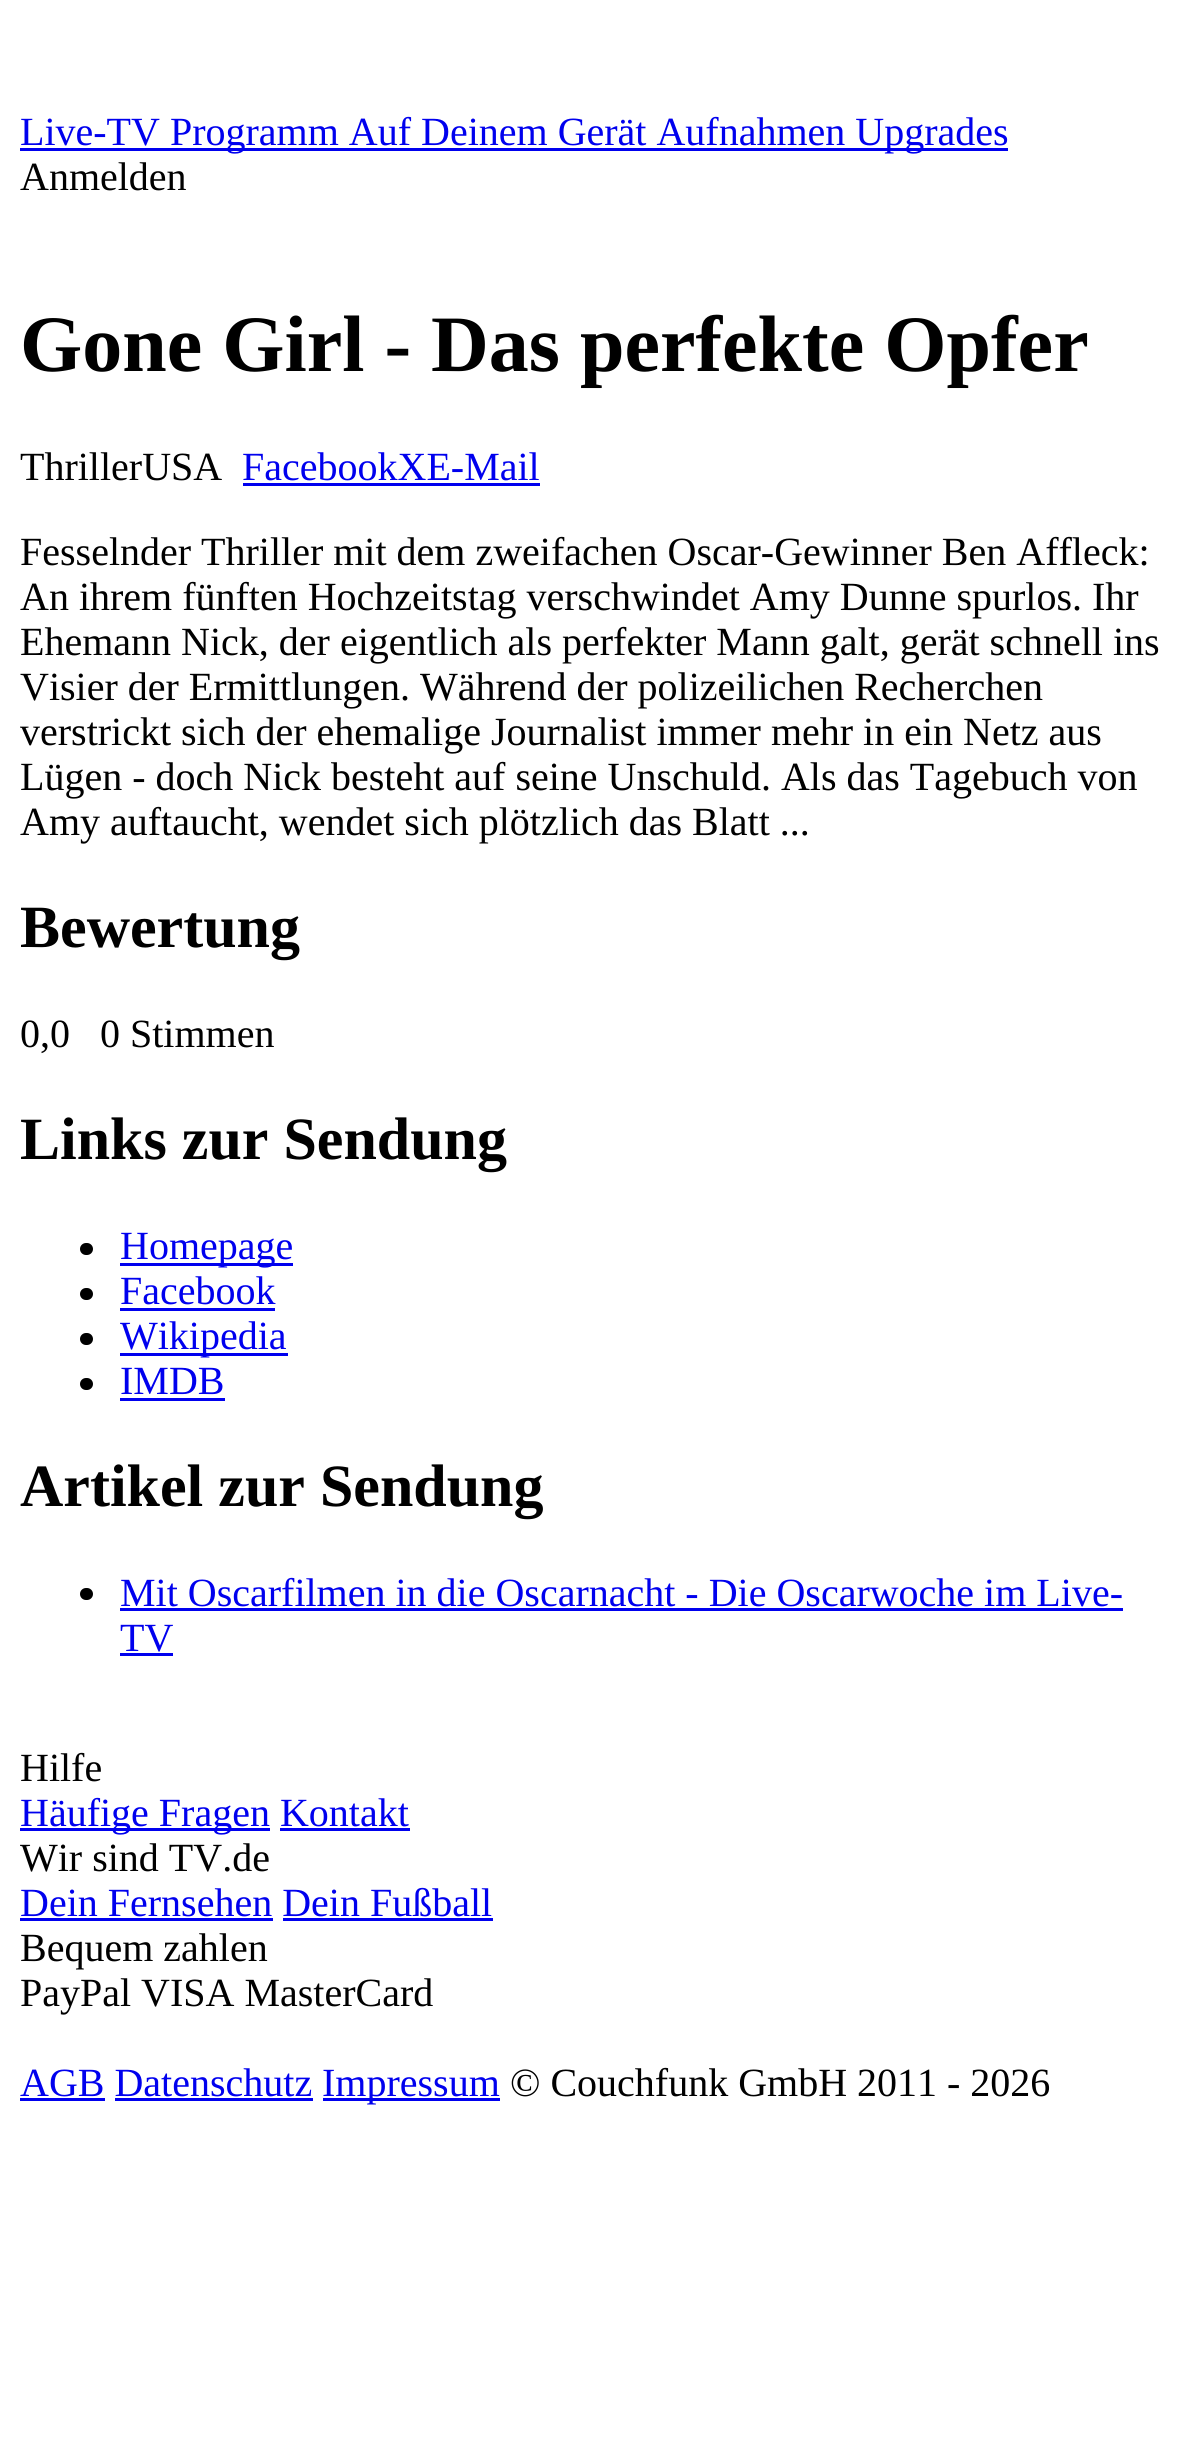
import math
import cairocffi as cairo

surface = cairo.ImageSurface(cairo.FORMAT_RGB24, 1193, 2446)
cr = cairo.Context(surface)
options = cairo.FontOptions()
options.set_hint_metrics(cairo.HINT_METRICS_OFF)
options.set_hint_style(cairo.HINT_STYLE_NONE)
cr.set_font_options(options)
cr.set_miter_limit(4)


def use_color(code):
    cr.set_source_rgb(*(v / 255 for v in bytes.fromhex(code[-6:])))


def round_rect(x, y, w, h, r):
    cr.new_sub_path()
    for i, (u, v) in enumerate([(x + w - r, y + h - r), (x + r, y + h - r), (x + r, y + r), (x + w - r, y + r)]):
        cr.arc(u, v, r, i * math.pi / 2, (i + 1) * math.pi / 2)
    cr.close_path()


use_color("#ffffff")
cr.paint()
use_color("#0000ee")
cr.rectangle(20, 148, 988, 3)
cr.fill()
cr.select_font_face("Liberation Serif")
cr.set_font_size(40)
cr.move_to(20, 145)
cr.show_text("Live-TV Programm Auf Deinem Gerät Aufnahmen Upgrades")
use_color("#000000")
cr.move_to(20, 190)
cr.show_text("Anmelden")
cr.select_font_face("Liberation Serif", cairo.FONT_SLANT_NORMAL, cairo.FONT_WEIGHT_BOLD)
cr.set_font_size(80)
cr.move_to(20, 371)
cr.show_text("Gone Girl - Das perfekte Opfer")
cr.select_font_face("Liberation Serif")
cr.set_font_size(40)
cr.move_to(20, 480)
cr.show_text("ThrillerUSA")
use_color("#0000ee")
cr.move_to(242, 480)
cr.show_text("FacebookXE-Mail")
cr.rectangle(243, 483, 297, 3)
cr.fill()
use_color("#000000")
cr.move_to(20, 565)
cr.show_text("Fesselnder Thriller mit dem zweifachen Oscar-Gewinner Ben Affleck:")
cr.move_to(20, 610)
cr.show_text("An ihrem fünften Hochzeitstag verschwindet Amy Dunne spurlos. Ihr")
cr.move_to(20, 655)
cr.show_text("Ehemann Nick, der eigentlich als perfekter Mann galt, gerät schnell ins")
cr.move_to(20, 700)
cr.show_text("Visier der Ermittlungen. Während der polizeilichen Recherchen")
cr.move_to(20, 745)
cr.show_text("verstrickt sich der ehemalige Journalist immer mehr in ein Netz aus")
cr.move_to(20, 790)
cr.show_text("Lügen - doch Nick besteht auf seine Unschuld. Als das Tagebuch von")
cr.move_to(20, 835)
cr.show_text("Amy auftaucht, wendet sich plötzlich das Blatt ...")
cr.select_font_face("Liberation Serif", cairo.FONT_SLANT_NORMAL, cairo.FONT_WEIGHT_BOLD)
cr.set_font_size(60)
cr.move_to(20, 947)
cr.show_text("Bewertung")
cr.select_font_face("Liberation Serif")
cr.set_font_size(40)
cr.move_to(20, 1047)
cr.show_text("0,0")
cr.move_to(100, 1047)
cr.show_text("0 Stimmen")
cr.select_font_face("Liberation Serif", cairo.FONT_SLANT_NORMAL, cairo.FONT_WEIGHT_BOLD)
cr.set_font_size(60)
cr.move_to(20, 1159)
cr.show_text("Links zur Sendung")
round_rect(80, 1243, 13, 12, 6)
cr.fill()
use_color("#0000ee")
cr.rectangle(120, 1263, 173, 3)
cr.fill()
cr.select_font_face("Liberation Serif")
cr.set_font_size(40)
cr.move_to(120, 1259)
cr.show_text("Homepage")
use_color("#000000")
round_rect(80, 1288, 13, 12, 6)
cr.fill()
use_color("#0000ee")
cr.move_to(120, 1304)
cr.show_text("Facebook")
cr.rectangle(120, 1308, 155, 3)
cr.fill()
use_color("#000000")
round_rect(80, 1333, 13, 12, 6)
cr.fill()
use_color("#0000ee")
cr.rectangle(120, 1353, 168, 3)
cr.fill()
cr.move_to(120, 1349)
cr.show_text("Wikipedia")
use_color("#000000")
round_rect(80, 1378, 13, 12, 6)
cr.fill()
use_color("#0000ee")
cr.move_to(120, 1394)
cr.show_text("IMDB")
cr.rectangle(120, 1398, 105, 3)
cr.fill()
cr.select_font_face("Liberation Serif", cairo.FONT_SLANT_NORMAL, cairo.FONT_WEIGHT_BOLD)
cr.set_font_size(60)
use_color("#000000")
cr.move_to(20, 1506)
cr.show_text("Artikel zur Sendung")
round_rect(80, 1588, 13, 12, 6)
cr.fill()
cr.select_font_face("Liberation Serif")
cr.set_font_size(40)
use_color("#0000ee")
cr.move_to(120, 1606)
cr.show_text("Mit Oscarfilmen in die Oscarnacht - Die Oscarwoche im Live-")
cr.rectangle(120, 1608, 1003, 3)
cr.fill()
cr.move_to(120, 1651)
cr.show_text("TV")
cr.rectangle(120, 1653, 53, 3)
cr.fill()
use_color("#000000")
cr.move_to(20, 1781)
cr.show_text("Hilfe")
use_color("#0000ee")
cr.rectangle(20, 1828, 250, 3)
cr.fill()
cr.move_to(20, 1826)
cr.show_text("Häufige Fragen Kontakt")
cr.rectangle(280, 1828, 130, 3)
cr.fill()
use_color("#000000")
cr.move_to(20, 1871)
cr.show_text("Wir sind TV.de")
use_color("#0000ee")
cr.move_to(20, 1916)
cr.show_text("Dein Fernsehen Dein Fußball")
cr.rectangle(20, 1918, 253, 3)
cr.fill()
cr.rectangle(283, 1918, 210, 3)
cr.fill()
use_color("#000000")
cr.move_to(20, 1961)
cr.show_text("Bequem zahlen")
cr.move_to(20, 2006)
cr.show_text("PayPal VISA MasterCard")
use_color("#0000ee")
cr.move_to(20, 2096)
cr.show_text("AGB Datenschutz")
cr.rectangle(20, 2098, 85, 3)
cr.fill()
cr.rectangle(323, 2098, 177, 3)
cr.fill()
cr.move_to(322, 2096)
cr.show_text("Impressum")
use_color("#000000")
cr.move_to(510, 2096)
cr.show_text("© Couchfunk GmbH 2011 - 2026")
use_color("#0000ee")
cr.rectangle(115, 2098, 198, 3)
cr.fill()
surface.write_to_png("result.png")
